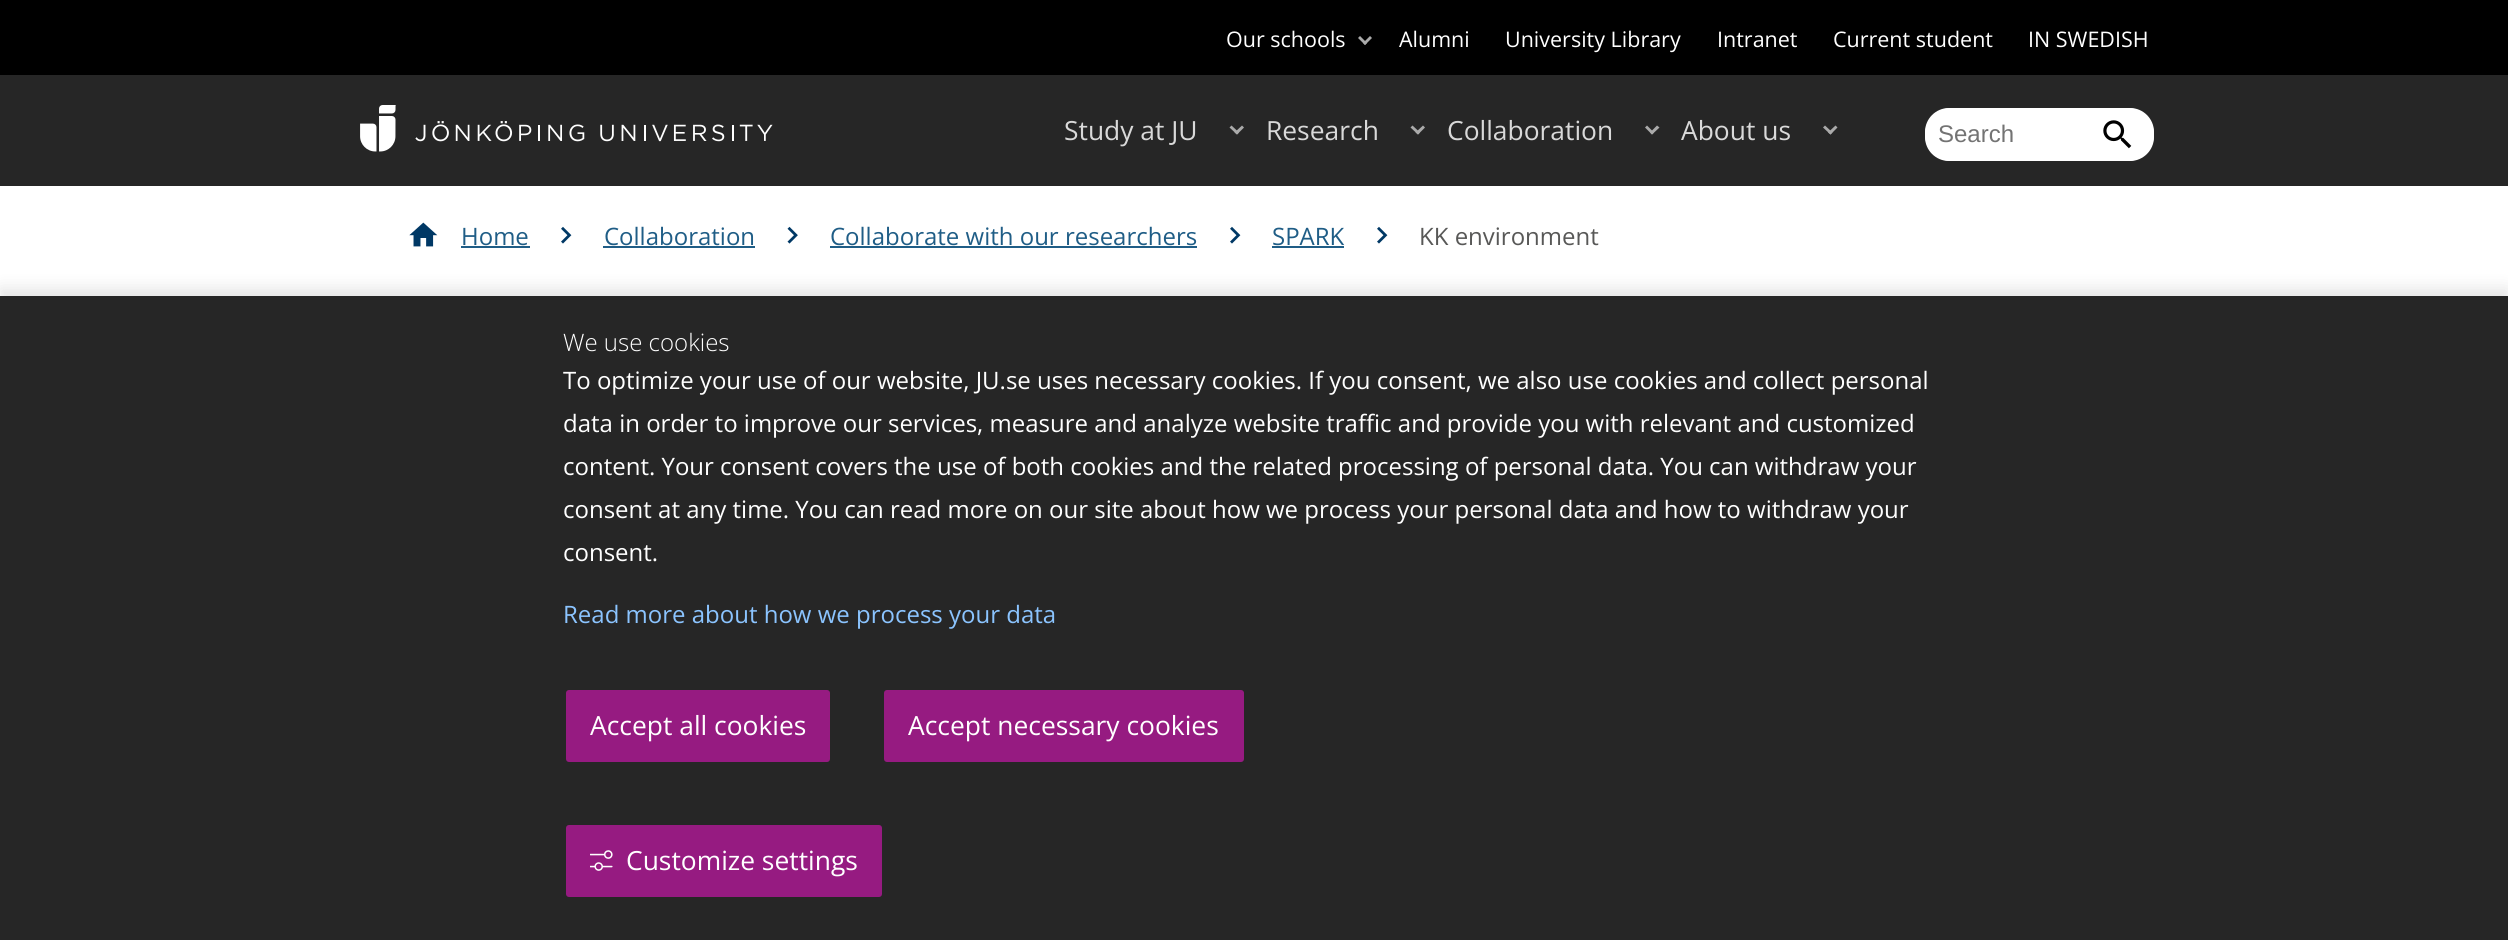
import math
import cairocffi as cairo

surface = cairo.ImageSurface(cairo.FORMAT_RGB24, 2508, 940)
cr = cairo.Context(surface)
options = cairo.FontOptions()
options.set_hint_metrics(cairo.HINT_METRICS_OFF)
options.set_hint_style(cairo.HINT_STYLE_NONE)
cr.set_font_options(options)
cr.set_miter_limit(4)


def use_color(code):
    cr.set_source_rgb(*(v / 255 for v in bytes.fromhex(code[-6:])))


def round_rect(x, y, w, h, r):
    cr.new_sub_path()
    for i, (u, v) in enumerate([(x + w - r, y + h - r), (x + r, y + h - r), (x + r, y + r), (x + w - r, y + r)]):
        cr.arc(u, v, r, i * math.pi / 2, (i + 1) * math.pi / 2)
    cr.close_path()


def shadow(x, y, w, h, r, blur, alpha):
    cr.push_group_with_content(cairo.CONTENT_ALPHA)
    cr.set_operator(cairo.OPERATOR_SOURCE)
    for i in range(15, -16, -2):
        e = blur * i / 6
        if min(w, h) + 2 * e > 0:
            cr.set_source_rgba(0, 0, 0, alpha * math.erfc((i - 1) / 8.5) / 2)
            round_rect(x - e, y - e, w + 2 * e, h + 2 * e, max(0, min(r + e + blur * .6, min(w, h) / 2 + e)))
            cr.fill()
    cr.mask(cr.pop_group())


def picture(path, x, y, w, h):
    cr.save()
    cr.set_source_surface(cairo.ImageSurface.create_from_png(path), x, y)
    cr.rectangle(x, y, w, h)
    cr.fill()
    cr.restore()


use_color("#ffffff")
cr.paint()
use_color("#000000")
cr.rectangle(0, 0, 2508, 75)
cr.fill()
cr.select_font_face("Open Sans")
cr.set_font_size(21.5)
use_color("#ffffff")
cr.move_to(1226, 47)
cr.show_text("Our schools")
use_color("#aaaaaa")
cr.new_path()
cr.move_to(1363, 43)
cr.line_to(1370, 36)
cr.line_to(1372, 38)
cr.line_to(1365, 45)
cr.close_path()
cr.fill()
cr.new_path()
cr.move_to(1358, 38)
cr.line_to(1360, 36)
cr.line_to(1367, 43)
cr.line_to(1365, 45)
cr.close_path()
cr.fill()
use_color("#ffffff")
cr.move_to(1399, 47)
cr.show_text("Alumni")
cr.move_to(1505, 47)
cr.show_text("University Library")
cr.move_to(1717, 47)
cr.show_text("Intranet")
cr.move_to(1833, 47)
cr.show_text("Current student")
cr.move_to(2028, 47)
cr.show_text("IN SWEDISH")
use_color("#262626")
cr.rectangle(0, 75, 2508, 111)
cr.fill()
picture("img1.png", 360, 105, 413, 47)
cr.set_font_size(26.4)
use_color("#d9d9d9")
cr.move_to(1064, 140)
cr.show_text("Study at JU")
use_color("#aaaaaa")
cr.new_path()
cr.move_to(1234.5, 132.5)
cr.line_to(1242, 125.5)
cr.line_to(1244, 127.5)
cr.line_to(1237, 134.5)
cr.close_path()
cr.fill()
cr.new_path()
cr.move_to(1229.5, 127.5)
cr.line_to(1231.5, 125.5)
cr.line_to(1239, 132.5)
cr.line_to(1237, 134.5)
cr.close_path()
cr.fill()
use_color("#d9d9d9")
cr.move_to(1266, 140)
cr.show_text("Research")
use_color("#aaaaaa")
cr.new_path()
cr.move_to(1415.5, 132.5)
cr.line_to(1423, 125.5)
cr.line_to(1425, 127.5)
cr.line_to(1418, 134.5)
cr.close_path()
cr.fill()
cr.new_path()
cr.move_to(1410.5, 127.5)
cr.line_to(1412.5, 125.5)
cr.line_to(1420, 132.5)
cr.line_to(1418, 134.5)
cr.close_path()
cr.fill()
use_color("#d9d9d9")
cr.move_to(1447, 140)
cr.show_text("Collaboration")
use_color("#aaaaaa")
cr.new_path()
cr.move_to(1650, 132.5)
cr.line_to(1657, 125.5)
cr.line_to(1659.5, 127.5)
cr.line_to(1652, 134.5)
cr.close_path()
cr.fill()
cr.new_path()
cr.move_to(1645, 127.5)
cr.line_to(1647, 125.5)
cr.line_to(1654, 132.5)
cr.line_to(1652, 134.5)
cr.close_path()
cr.fill()
use_color("#d9d9d9")
cr.move_to(1681, 140)
cr.show_text("About us")
use_color("#aaaaaa")
cr.new_path()
cr.move_to(1828, 132.5)
cr.line_to(1835.5, 125.5)
cr.line_to(1837.5, 127.5)
cr.line_to(1830.5, 134.5)
cr.close_path()
cr.fill()
cr.new_path()
cr.move_to(1823, 127.5)
cr.line_to(1825, 125.5)
cr.line_to(1832.5, 132.5)
cr.line_to(1830.5, 134.5)
cr.close_path()
cr.fill()
use_color("#ffffff")
round_rect(1925, 108, 229, 53, 24)
cr.fill()
round_rect(1925, 108, 229, 53, 26.5)
cr.fill()
cr.select_font_face("Liberation Sans")
cr.set_font_size(24)
use_color("#737373")
cr.move_to(1938, 142)
cr.show_text("Search")
picture("img2.png", 2103, 120, 29, 29)
picture("img3.png", 409, 222, 29, 25)
cr.select_font_face("Open Sans")
use_color("#1f5d86")
cr.move_to(461, 245)
cr.show_text("Home")
cr.rectangle(461, 246, 69, 2)
cr.fill()
picture("img4.png", 561, 226, 11, 18)
cr.move_to(604, 245)
cr.show_text("Collaboration")
cr.rectangle(603, 246, 152, 2)
cr.fill()
picture("img5.png", 787, 226, 11, 18)
cr.move_to(830, 245)
cr.show_text("Collaborate with our researchers")
cr.rectangle(830, 246, 367, 2)
cr.fill()
picture("img4.png", 1230, 226, 11, 18)
cr.move_to(1272, 245)
cr.show_text("SPARK")
cr.rectangle(1272, 246, 72, 2)
cr.fill()
picture("img4.png", 1377, 226, 11, 18)
use_color("#585857")
cr.move_to(1419, 245)
cr.show_text("KK environment")
use_color("#000000")
shadow(0, 288, 2508, 645, 0, 7.5, 0.1)
use_color("#262626")
cr.rectangle(0, 296, 2508, 644)
cr.fill()
cr.select_font_face("Open Sans Light")
use_color("#ffffff")
cr.move_to(563, 351)
cr.show_text("We use cookies")
cr.select_font_face("Open Sans")
cr.move_to(563, 389)
cr.show_text("To optimize your use of our website, JU.se uses necessary cookies. If you consent, we also use cookies and collect personal")
cr.move_to(563, 432)
cr.show_text("data in order to improve our services, measure and analyze website traffic and provide you with relevant and customized")
cr.move_to(563, 475)
cr.show_text("content. Your consent covers the use of both cookies and the related processing of personal data. You can withdraw your")
cr.move_to(563, 518)
cr.show_text("consent at any time. You can read more on our site about how we process your personal data and how to withdraw your")
cr.move_to(563, 561)
cr.show_text("consent.")
use_color("#8bc4ff")
cr.move_to(563, 623)
cr.show_text("Read more about how we process your data")
use_color("#961b81")
round_rect(566, 690, 264, 72, 3)
cr.fill()
cr.set_font_size(26.4)
use_color("#ffffff")
cr.move_to(590, 735)
cr.show_text("Accept all cookies")
use_color("#961b81")
round_rect(884, 690, 360, 72, 3)
cr.fill()
use_color("#ffffff")
cr.move_to(908, 735)
cr.show_text("Accept necessary cookies")
use_color("#961b81")
round_rect(566, 825, 316, 72, 3)
cr.fill()
picture("img6.png", 590, 850, 23, 21)
use_color("#ffffff")
cr.move_to(626, 870)
cr.show_text("Customize settings")
surface.write_to_png("result.png")
